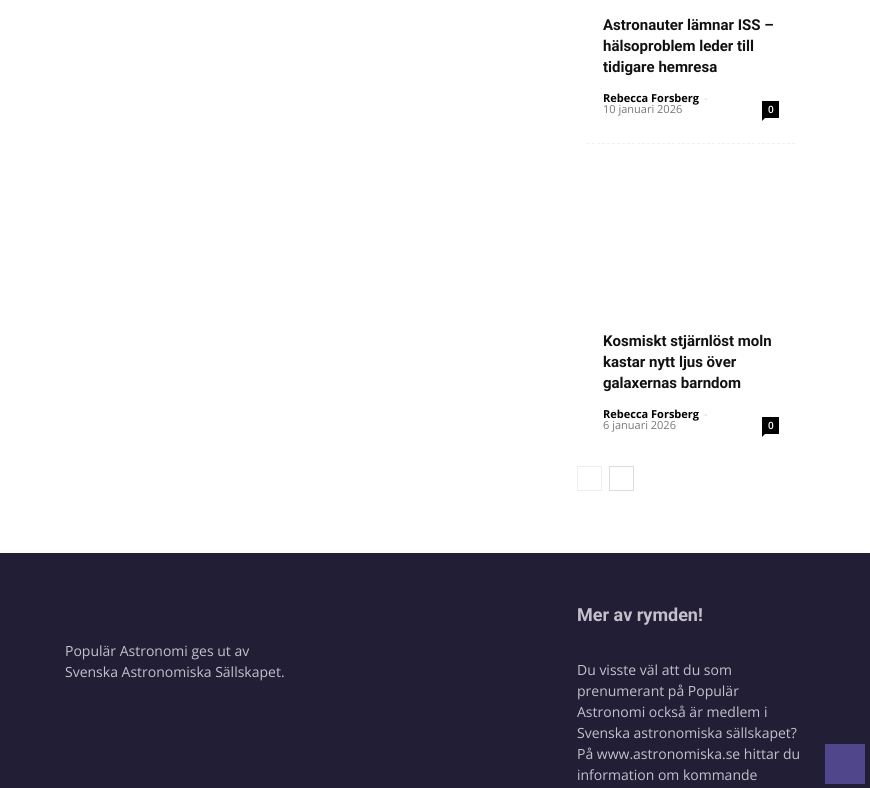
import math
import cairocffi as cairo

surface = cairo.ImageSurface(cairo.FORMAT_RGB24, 870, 788)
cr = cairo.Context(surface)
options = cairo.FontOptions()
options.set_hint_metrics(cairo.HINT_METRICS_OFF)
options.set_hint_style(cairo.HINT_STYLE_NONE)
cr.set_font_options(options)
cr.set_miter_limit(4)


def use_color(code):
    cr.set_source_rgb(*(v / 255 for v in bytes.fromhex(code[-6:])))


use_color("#ffffff")
cr.paint()
cr.new_path()
cr.move_to(587, 143.5)
cr.line_to(795, 143.5)
use_color("#f1f1f1")
cr.set_line_width(1)
cr.set_dash([3, 2])
cr.stroke()
cr.select_font_face("Roboto", cairo.FONT_SLANT_NORMAL, cairo.FONT_WEIGHT_BOLD)
cr.set_font_size(15)
use_color("#111111")
cr.move_to(603, 30)
cr.show_text("Astronauter lämnar ISS –")
cr.move_to(603, 51)
cr.show_text("hälsoproblem leder till")
cr.move_to(603, 72)
cr.show_text("tidigare hemresa")
cr.select_font_face("Open Sans", cairo.FONT_SLANT_NORMAL, cairo.FONT_WEIGHT_BOLD)
cr.set_font_size(11)
use_color("#000000")
cr.move_to(603, 102)
cr.show_text("Rebecca Forsberg")
cr.select_font_face("Open Sans")
use_color("#cccccc")
cr.move_to(704, 102)
cr.show_text("-")
use_color("#767676")
cr.move_to(603, 113)
cr.show_text("10 januari 2026")
use_color("#000000")
cr.rectangle(762, 101, 17, 17)
cr.fill()
cr.select_font_face("Open Sans SemiBold")
cr.set_font_size(10)
use_color("#ffffff")
cr.move_to(768, 113)
cr.show_text("0")
use_color("#000000")
cr.new_path()
cr.move_to(762, 118)
cr.line_to(765, 118)
cr.line_to(762, 121)
cr.close_path()
cr.fill()
cr.select_font_face("Roboto", cairo.FONT_SLANT_NORMAL, cairo.FONT_WEIGHT_BOLD)
cr.set_font_size(15)
use_color("#111111")
cr.move_to(603, 346)
cr.show_text("Kosmiskt stjärnlöst moln")
cr.move_to(603, 367)
cr.show_text("kastar nytt ljus över")
cr.move_to(603, 388)
cr.show_text("galaxernas barndom")
cr.select_font_face("Open Sans", cairo.FONT_SLANT_NORMAL, cairo.FONT_WEIGHT_BOLD)
cr.set_font_size(11)
use_color("#000000")
cr.move_to(603, 418)
cr.show_text("Rebecca Forsberg")
cr.select_font_face("Open Sans")
use_color("#cccccc")
cr.move_to(704, 418)
cr.show_text("-")
use_color("#767676")
cr.move_to(603, 429)
cr.show_text("6 januari 2026")
use_color("#000000")
cr.rectangle(762, 417, 17, 17)
cr.fill()
cr.select_font_face("Open Sans SemiBold")
cr.set_font_size(10)
use_color("#ffffff")
cr.move_to(768, 429)
cr.show_text("0")
use_color("#000000")
cr.new_path()
cr.move_to(762, 434)
cr.line_to(765, 434)
cr.line_to(762, 437)
cr.close_path()
cr.fill()
cr.rectangle(577.5, 466.5, 24, 24)
use_color("#eeeeee")
cr.set_dash([])
cr.stroke()
cr.rectangle(609.5, 466.5, 24, 24)
use_color("#dcdcdc")
cr.stroke()
use_color("#221e35")
cr.rectangle(0, 553, 870, 235)
cr.fill()
cr.select_font_face("Open Sans")
cr.set_font_size(14)
use_color("#c5bfcc")
cr.move_to(65, 656)
cr.show_text("Populär Astronomi ges ut av")
cr.move_to(65, 677)
cr.show_text("Svenska Astronomiska Sällskapet.")
cr.select_font_face("Roboto", cairo.FONT_SLANT_NORMAL, cairo.FONT_WEIGHT_BOLD)
cr.set_font_size(18)
cr.move_to(577, 621)
cr.show_text("Mer av rymden!")
cr.select_font_face("Open Sans")
cr.set_font_size(14)
cr.move_to(577, 675)
cr.show_text("Du visste väl att du som")
cr.move_to(577, 696)
cr.show_text("prenumerant på Populär")
cr.move_to(577, 717)
cr.show_text("Astronomi också är medlem i")
cr.move_to(577, 738)
cr.show_text("Svenska astronomiska sällskapet?")
cr.move_to(577, 759)
cr.show_text("På www.astronomiska.se hittar du")
cr.move_to(577, 780)
cr.show_text("information om kommande")
use_color("#50468b")
cr.rectangle(825, 744, 40, 40)
cr.fill()
surface.write_to_png("result.png")
